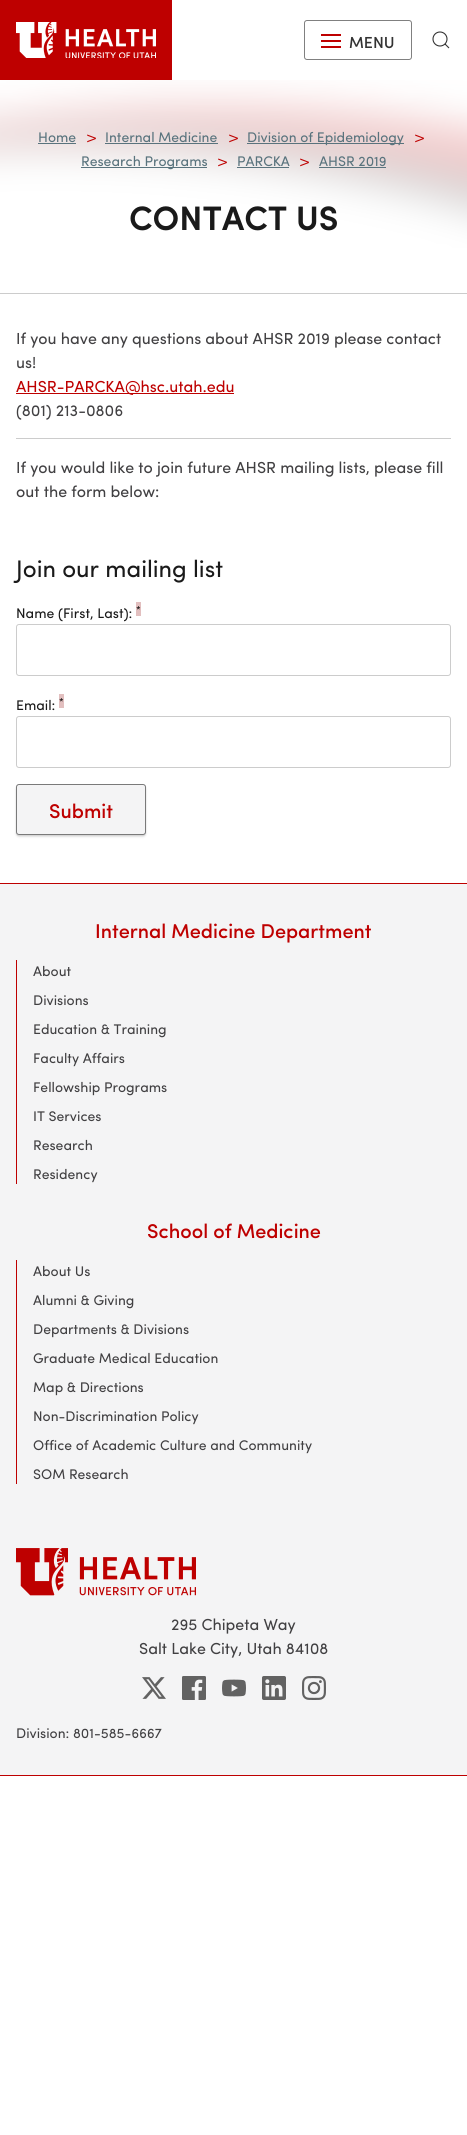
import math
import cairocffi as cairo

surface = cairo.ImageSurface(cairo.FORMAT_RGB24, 467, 2135)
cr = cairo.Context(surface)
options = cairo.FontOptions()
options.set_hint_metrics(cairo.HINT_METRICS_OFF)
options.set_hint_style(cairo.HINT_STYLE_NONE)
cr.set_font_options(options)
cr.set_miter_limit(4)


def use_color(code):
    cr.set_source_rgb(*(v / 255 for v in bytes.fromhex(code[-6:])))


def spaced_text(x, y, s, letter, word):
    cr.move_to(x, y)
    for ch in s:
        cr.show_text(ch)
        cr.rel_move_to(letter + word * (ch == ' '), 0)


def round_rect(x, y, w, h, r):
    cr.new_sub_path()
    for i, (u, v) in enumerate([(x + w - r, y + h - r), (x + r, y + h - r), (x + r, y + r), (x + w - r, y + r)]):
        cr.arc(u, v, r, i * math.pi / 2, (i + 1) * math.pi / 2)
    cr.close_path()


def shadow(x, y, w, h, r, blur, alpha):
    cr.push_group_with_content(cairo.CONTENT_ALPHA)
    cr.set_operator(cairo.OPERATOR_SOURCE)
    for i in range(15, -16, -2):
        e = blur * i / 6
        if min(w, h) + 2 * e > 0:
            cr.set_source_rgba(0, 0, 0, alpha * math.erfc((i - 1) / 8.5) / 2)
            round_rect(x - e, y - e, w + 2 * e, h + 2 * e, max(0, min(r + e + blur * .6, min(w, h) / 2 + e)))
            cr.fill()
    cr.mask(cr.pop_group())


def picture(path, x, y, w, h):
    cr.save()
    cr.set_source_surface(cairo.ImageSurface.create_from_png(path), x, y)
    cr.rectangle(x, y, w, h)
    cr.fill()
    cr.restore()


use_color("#ffffff")
cr.paint()
use_color("#be0000")
cr.rectangle(0, 0, 172, 80)
cr.fill()
picture("img1.png", 16, 22, 140, 36)
round_rect(304.5, 20.5, 107, 39, 2.5)
use_color("#808080")
cr.set_line_width(1)
cr.stroke()
use_color("#be0000")
cr.rectangle(321, 34, 20, 2)
cr.fill()
cr.rectangle(321, 40, 20, 2)
cr.fill()
cr.rectangle(321, 46, 20, 2)
cr.fill()
cr.select_font_face("Sofia Medium")
cr.set_font_size(16)
use_color("#333333")
cr.move_to(349, 48)
cr.show_text("MENU")
cr.new_path()
cr.arc(440, 39, 7, 0, 2 * math.pi)
cr.set_line_width(1.1)
cr.stroke()
cr.new_path()
cr.move_to(445, 44)
cr.line_to(449, 48)
cr.close_path()
cr.set_source_rgba(0, 0, 0, 0.8)
cr.stroke()
use_color("#cccccc")
cr.rectangle(0, 293, 467, 1)
cr.fill()
picture("img2.png", 0, 80, 467, 168)
cr.select_font_face("Sofia")
cr.set_font_size(14)
use_color("#59737d")
cr.move_to(38, 142)
cr.show_text("Home")
cr.rectangle(38, 143, 38, 1)
cr.fill()
cr.select_font_face("Sofia Light")
cr.set_font_size(17)
use_color("#be0000")
spaced_text(86, 143, ">", -5, 0)
cr.select_font_face("Sofia")
cr.set_font_size(14)
use_color("#59737d")
cr.move_to(105, 142)
cr.show_text("Internal Medicine")
cr.rectangle(105, 143, 113, 1)
cr.fill()
cr.select_font_face("Sofia Light")
cr.set_font_size(17)
use_color("#be0000")
spaced_text(228, 143, ">", -5, 0)
use_color("#59737d")
cr.rectangle(247, 143, 157, 1)
cr.fill()
cr.select_font_face("Sofia")
cr.set_font_size(14)
cr.move_to(247, 142)
cr.show_text("Division of Epidemiology")
cr.select_font_face("Sofia Light")
cr.set_font_size(17)
use_color("#be0000")
spaced_text(414, 143, ">", -5, 0)
use_color("#59737d")
cr.rectangle(81, 167, 126, 1)
cr.fill()
cr.select_font_face("Sofia")
cr.set_font_size(14)
cr.move_to(81, 166)
cr.show_text("Research Programs")
cr.select_font_face("Sofia Light")
cr.set_font_size(17)
use_color("#be0000")
spaced_text(217, 167, ">", -5, 0)
cr.select_font_face("Sofia")
cr.set_font_size(14)
use_color("#59737d")
cr.move_to(237, 166)
cr.show_text("PARCKA")
cr.rectangle(237, 167, 52, 1)
cr.fill()
cr.select_font_face("Sofia Light")
cr.set_font_size(17)
use_color("#be0000")
spaced_text(299, 167, ">", -5, 0)
cr.select_font_face("Sofia")
cr.set_font_size(14)
use_color("#59737d")
cr.move_to(319, 166)
cr.show_text("AHSR 2019")
cr.rectangle(319, 167, 67, 1)
cr.fill()
cr.select_font_face("Sofia SemiBold")
cr.set_font_size(34)
use_color("#1a1a1a")
cr.move_to(129, 230)
cr.show_text("CONTACT US")
cr.select_font_face("Sofia")
cr.set_font_size(16)
use_color("#414042")
cr.move_to(16, 344)
cr.show_text("If you have any questions about AHSR 2019 please contact")
cr.move_to(16, 368)
cr.show_text("us!")
use_color("#be0000")
cr.rectangle(16, 393, 218, 1)
cr.fill()
cr.move_to(16, 392)
cr.show_text("AHSR-PARCKA@hsc.utah.edu")
use_color("#414042")
cr.move_to(16, 416)
cr.show_text("(801) 213-0806")
use_color("#cccccc")
cr.rectangle(16, 438, 435, 1)
cr.fill()
use_color("#414042")
cr.move_to(16, 473)
cr.show_text("If you would like to join future AHSR mailing lists, please fill")
cr.move_to(16, 497)
cr.show_text("out the form below:")
cr.set_font_size(24)
use_color("#1a1a1a")
cr.move_to(16, 577)
cr.show_text("Join our mailing list")
use_color("#e2bfbf")
cr.rectangle(136, 602, 5, 14)
cr.fill()
cr.set_font_size(10)
use_color("#171313")
cr.move_to(136, 613)
cr.show_text("*")
cr.set_font_size(14)
use_color("#1a1a1a")
cr.move_to(16, 618)
cr.show_text("Name (First, Last):")
round_rect(16.5, 624.5, 434, 51, 2.5)
use_color("#cccccc")
cr.set_line_width(1)
cr.stroke()
use_color("#1a1a1a")
cr.move_to(16, 710)
cr.show_text("Email:")
use_color("#e2bfbf")
cr.rectangle(59, 694, 5, 14)
cr.fill()
cr.set_font_size(10)
use_color("#171313")
cr.move_to(59, 705)
cr.show_text("*")
round_rect(16.5, 716.5, 434, 51, 2.5)
use_color("#cccccc")
cr.stroke()
use_color("#000000")
shadow(16, 786, 130, 51, 3, 1, 0.1)
shadow(16, 785, 130, 51, 3, 0.5, 0.09)
use_color("#f4f4f5")
round_rect(16, 784, 130, 51, 3)
cr.fill()
round_rect(16.5, 784.5, 129, 50, 2.5)
cr.set_source_rgba(0, 0, 0, 0.5)
cr.stroke()
cr.select_font_face("Sofia Medium")
cr.set_font_size(20)
use_color("#be0000")
cr.move_to(49, 818)
cr.show_text("Submit")
use_color("#f4f4f5")
cr.rectangle(0, 884, 467, 891)
cr.fill()
use_color("#be0000")
cr.rectangle(0, 883, 467, 1)
cr.fill()
cr.rectangle(0, 1775, 467, 1)
cr.fill()
cr.move_to(95, 938)
cr.show_text("Internal Medicine Department")
cr.rectangle(16, 960, 1, 224)
cr.fill()
cr.select_font_face("Sofia")
cr.set_font_size(14)
use_color("#414042")
cr.move_to(33, 976)
cr.show_text("About")
cr.move_to(33, 1005)
cr.show_text("Divisions")
cr.move_to(33, 1034)
cr.show_text("Education & Training")
cr.move_to(33, 1063)
cr.show_text("Faculty Affairs")
cr.move_to(33, 1092)
cr.show_text("Fellowship Programs")
cr.move_to(33, 1121)
cr.show_text("IT Services")
cr.move_to(33, 1150)
cr.show_text("Research")
cr.move_to(33, 1179)
cr.show_text("Residency")
cr.select_font_face("Sofia Medium")
cr.set_font_size(20)
use_color("#be0000")
cr.move_to(147, 1238)
cr.show_text("School of Medicine")
cr.rectangle(16, 1260, 1, 224)
cr.fill()
cr.select_font_face("Sofia")
cr.set_font_size(14)
use_color("#414042")
cr.move_to(33, 1276)
cr.show_text("About Us")
cr.move_to(33, 1305)
cr.show_text("Alumni & Giving")
cr.move_to(33, 1334)
cr.show_text("Departments & Divisions")
cr.move_to(33, 1363)
cr.show_text("Graduate Medical Education")
cr.move_to(33, 1392)
cr.show_text("Map & Directions")
cr.move_to(33, 1421)
cr.show_text("Non-Discrimination Policy")
cr.move_to(33, 1450)
cr.show_text("Office of Academic Culture and Community")
cr.move_to(33, 1479)
cr.show_text("SOM Research")
picture("img3.png", 16, 1548, 180, 48)
cr.set_font_size(16)
cr.move_to(171, 1630)
cr.show_text("295 Chipeta Way")
cr.move_to(139, 1654)
cr.show_text("Salt Lake City, Utah 84108")
picture("img4.png", 142, 1677, 24, 22)
picture("img5.png", 182, 1676, 24, 24)
picture("img6.png", 222, 1679, 24, 18)
picture("img7.png", 262, 1676, 24, 24)
picture("img8.png", 302, 1676, 24, 24)
cr.set_font_size(14)
cr.move_to(16, 1738)
cr.show_text("Division: 801-585-6667")
surface.write_to_png("result.png")
